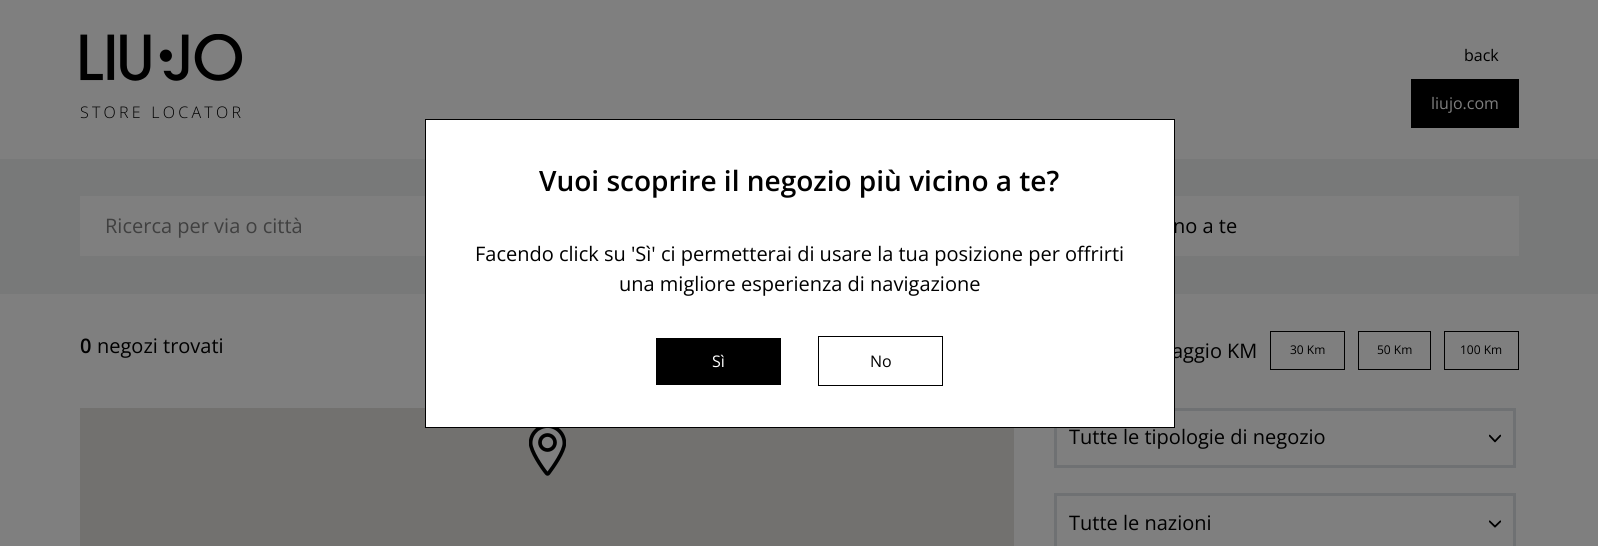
import math
import cairocffi as cairo

surface = cairo.ImageSurface(cairo.FORMAT_RGB24, 1598, 546)
cr = cairo.Context(surface)
options = cairo.FontOptions()
options.set_hint_metrics(cairo.HINT_METRICS_OFF)
options.set_hint_style(cairo.HINT_STYLE_NONE)
cr.set_font_options(options)
cr.set_miter_limit(4)


def use_color(code):
    cr.set_source_rgb(*(v / 255 for v in bytes.fromhex(code[-6:])))


def spaced_text(x, y, s, letter, word):
    cr.move_to(x, y)
    for ch in s:
        cr.show_text(ch)
        cr.rel_move_to(letter + word * (ch == ' '), 0)


def picture(path, x, y, w, h):
    cr.save()
    cr.set_source_surface(cairo.ImageSurface.create_from_png(path), x, y)
    cr.rectangle(x, y, w, h)
    cr.fill()
    cr.restore()


use_color("#ffffff")
cr.paint()
picture("img1.png", 80, 34, 163, 47)
cr.select_font_face("Open Sans Light")
cr.set_font_size(16)
use_color("#000000")
spaced_text(80, 118, "STORE LOCATOR", 3.25, 0)
cr.select_font_face("Open Sans")
cr.move_to(1464, 61)
cr.show_text("back")
cr.rectangle(1411, 79, 108, 49)
cr.fill()
use_color("#ffffff")
cr.move_to(1431, 109)
cr.show_text("liujo.com")
use_color("#f1f2f3")
cr.rectangle(0, 159, 1598, 135)
cr.fill()
use_color("#ffffff")
cr.rectangle(80, 196, 345, 60)
cr.fill()
cr.set_font_size(20)
use_color("#808080")
cr.move_to(105, 233)
cr.show_text("Ricerca per via o città")
use_color("#ffffff")
cr.rectangle(1175, 196, 344, 60)
cr.fill()
use_color("#000000")
cr.move_to(1173, 233)
cr.show_text("no a te")
cr.select_font_face("Open Sans SemiBold")
cr.move_to(80, 353)
cr.show_text("0")
cr.select_font_face("Open Sans")
cr.move_to(97, 353)
cr.show_text("negozi trovati")
cr.move_to(1172, 358)
cr.show_text("aggio KM")
cr.rectangle(1270.5, 331.5, 74, 38)
cr.set_line_width(1)
cr.stroke()
cr.set_font_size(12)
cr.move_to(1290, 354)
cr.show_text("30 Km")
cr.rectangle(1358.5, 331.5, 72, 38)
cr.stroke()
cr.move_to(1377, 354)
cr.show_text("50 Km")
cr.rectangle(1444.5, 331.5, 74, 38)
cr.stroke()
cr.move_to(1460, 354)
cr.show_text("100 Km")
use_color("#e5e3df")
cr.rectangle(80, 408, 934, 138)
cr.fill()
picture("img2.png", 529, 428, 37, 48)
cr.rectangle(1055.5, 409.5, 459, 57)
use_color("#dfe3e7")
cr.set_line_width(3)
cr.stroke()
cr.set_font_size(20)
use_color("#000000")
cr.move_to(1069, 444)
cr.show_text("Tutte le tipologie di negozio")
picture("img3.png", 1489, 434, 12, 9)
cr.rectangle(1055.5, 494.5, 459, 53)
use_color("#dfe3e7")
cr.stroke()
use_color("#000000")
cr.move_to(1069, 530)
cr.show_text("Tutte le nazioni")
picture("img4.png", 1489, 520, 12, 8)
cr.rectangle(-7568, -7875, 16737, 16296)
cr.set_source_rgba(0, 0, 0, 0.5)
cr.set_line_width(15988)
cr.stroke()
use_color("#ffffff")
cr.rectangle(426, 159, 748, 268)
cr.fill()
cr.rectangle(425.5, 119.5, 749, 308)
use_color("#000000")
cr.set_line_width(1)
cr.stroke()
cr.select_font_face("Open Sans SemiBold")
cr.set_font_size(28)
cr.move_to(539, 191)
cr.show_text("Vuoi scoprire il negozio più vicino a te?")
cr.select_font_face("Open Sans")
cr.set_font_size(20)
cr.move_to(475, 261)
cr.show_text("Facendo click su 'Sì' ci permetterai di usare la tua posizione per offrirti")
cr.move_to(619, 291)
cr.show_text("una migliore esperienza di navigazione")
cr.rectangle(656, 338, 125, 47)
cr.fill()
cr.set_font_size(16)
use_color("#ffffff")
cr.move_to(712, 367)
cr.show_text("Sì")
cr.rectangle(818.5, 336.5, 124, 49)
use_color("#000000")
cr.stroke()
cr.move_to(870, 367)
cr.show_text("No")
surface.write_to_png("result.png")
